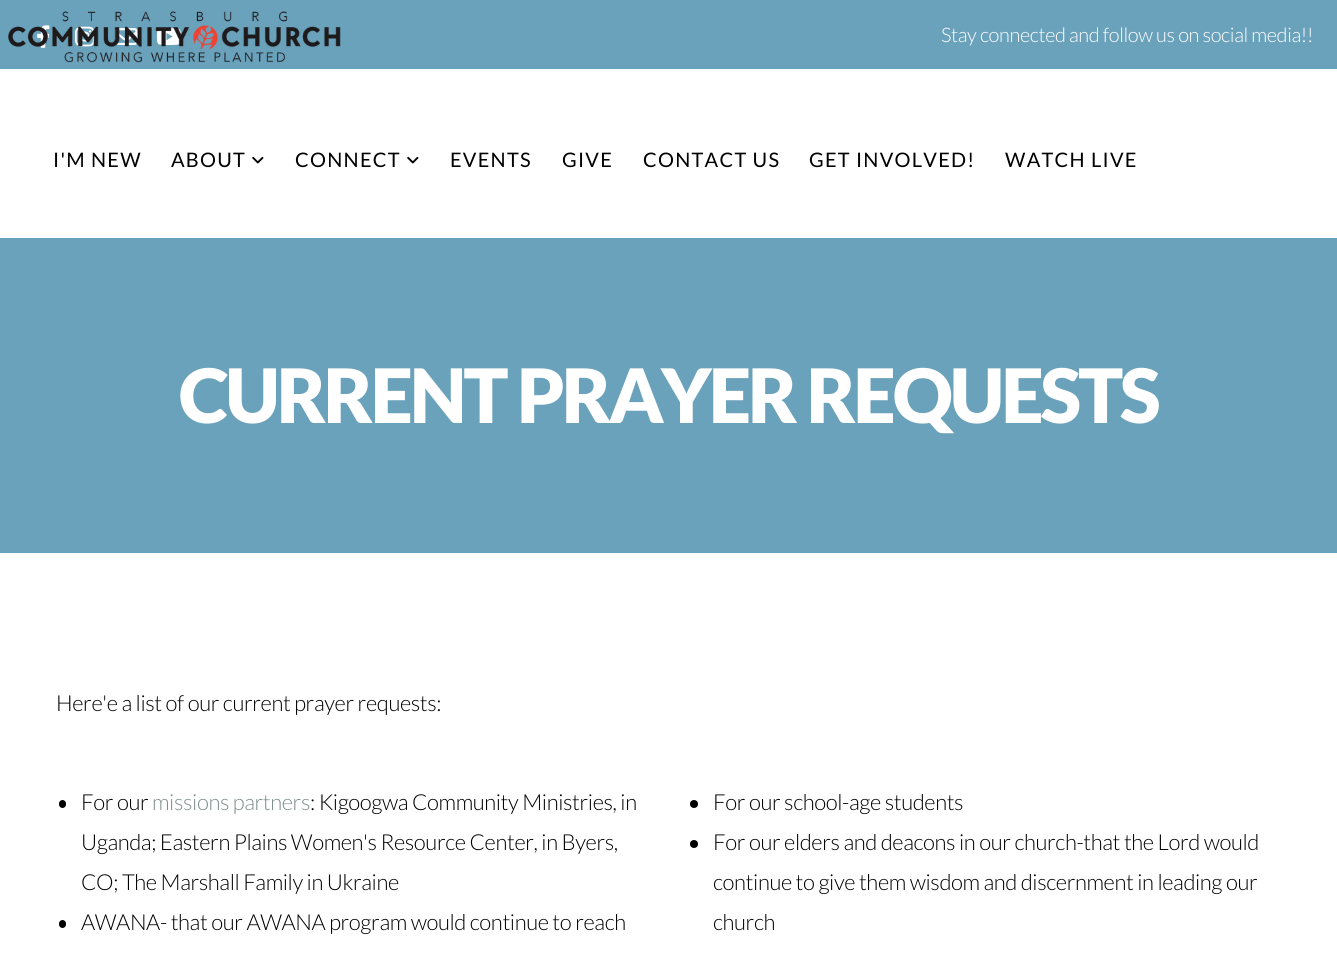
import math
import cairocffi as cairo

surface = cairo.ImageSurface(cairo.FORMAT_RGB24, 1337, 957)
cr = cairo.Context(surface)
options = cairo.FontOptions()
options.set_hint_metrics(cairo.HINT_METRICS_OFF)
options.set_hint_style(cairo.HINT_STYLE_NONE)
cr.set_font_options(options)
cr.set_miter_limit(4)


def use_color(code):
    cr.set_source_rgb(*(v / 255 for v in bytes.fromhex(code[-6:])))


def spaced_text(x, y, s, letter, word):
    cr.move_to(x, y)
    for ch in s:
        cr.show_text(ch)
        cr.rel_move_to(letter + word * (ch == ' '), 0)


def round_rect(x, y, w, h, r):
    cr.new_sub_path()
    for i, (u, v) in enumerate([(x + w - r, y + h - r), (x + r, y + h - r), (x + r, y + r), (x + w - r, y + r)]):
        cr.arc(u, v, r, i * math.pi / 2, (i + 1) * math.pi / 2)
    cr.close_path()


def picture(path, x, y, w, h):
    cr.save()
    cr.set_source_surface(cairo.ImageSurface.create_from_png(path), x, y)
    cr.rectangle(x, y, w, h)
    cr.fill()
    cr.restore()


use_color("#ffffff")
cr.paint()
use_color("#6aa2bb")
cr.rectangle(0, 0, 1337, 69)
cr.fill()
picture("img2.png", 37, 25, 13, 23)
picture("img3.png", 75, 26, 20, 21)
picture("img4.png", 115, 28, 23, 17)
picture("img5.png", 156, 28, 25, 17)
picture("img1.png", 8, 11, 333, 52)
cr.select_font_face("Lato Light")
cr.set_font_size(20)
use_color("#ffffff")
spaced_text(941, 42, "Stay connected and follow us on social media!!", -0.4, 0)
cr.select_font_face("Lato")
use_color("#000000")
spaced_text(53, 167, "I'M NEW", 1.25, 0)
spaced_text(171, 167, "ABOUT", 1.25, 0)
picture("img6.png", 252, 156, 12, 8)
spaced_text(295, 167, "CONNECT", 1.25, 0)
picture("img6.png", 407, 156, 12, 8)
spaced_text(450, 167, "EVENTS", 1.25, 0)
spaced_text(562, 167, "GIVE", 1.25, 0)
spaced_text(643, 167, "CONTACT US", 1.25, 0)
spaced_text(809, 167, "GET INVOLVED!", 1.25, 0)
spaced_text(1005, 167, "WATCH LIVE", 1.25, 0)
use_color("#6aa2bb")
cr.rectangle(0, 238, 1337, 315)
cr.fill()
cr.select_font_face("Lato Black")
cr.set_font_size(75)
use_color("#ffffff")
spaced_text(179, 423, "CURRENT PRAYER REQUESTS", -3, 0)
cr.select_font_face("Lato Light")
cr.set_font_size(22)
use_color("#000000")
spaced_text(56, 711, "Here'e a list of our current prayer requests:", -0.4, 0)
round_rect(59, 800, 7, 8, 3.5)
cr.fill()
spaced_text(81, 810, "For our", -0.4, 0)
use_color("#7f8c8d")
spaced_text(152, 810, "missions partners", -0.4, 0)
use_color("#000000")
spaced_text(310, 810, ": Kigoogwa Community Ministries, in", -0.4, 0)
spaced_text(81, 850, "Uganda; Eastern Plains Women's Resource Center, in Byers,", -0.4, 0)
spaced_text(81, 890, "CO; The Marshall Family in Ukraine", -0.4, 0)
round_rect(59, 920, 7, 8, 3.5)
cr.fill()
spaced_text(81, 930, "AWANA- that our AWANA program would continue to reach", -0.4, 0)
cr.new_path()
cr.arc(694, 804, 4, 0, 2 * math.pi)
cr.fill()
spaced_text(713, 810, "For our school-age students", -0.4, 0)
cr.new_path()
cr.arc(694, 844, 4, 0, 2 * math.pi)
cr.fill()
spaced_text(713, 850, "For our elders and deacons in our church-that the Lord would", -0.4, 0)
spaced_text(713, 890, "continue to give them wisdom and discernment in leading our", -0.4, 0)
spaced_text(713, 930, "church", -0.4, 0)
surface.write_to_png("result.png")
